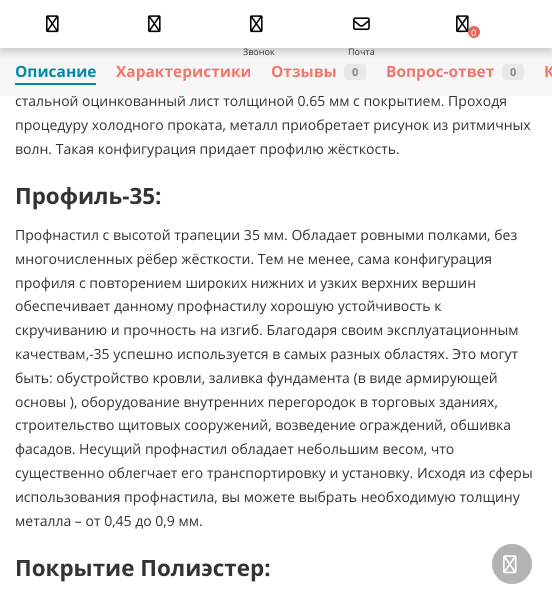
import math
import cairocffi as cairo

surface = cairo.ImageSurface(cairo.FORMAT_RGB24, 552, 604)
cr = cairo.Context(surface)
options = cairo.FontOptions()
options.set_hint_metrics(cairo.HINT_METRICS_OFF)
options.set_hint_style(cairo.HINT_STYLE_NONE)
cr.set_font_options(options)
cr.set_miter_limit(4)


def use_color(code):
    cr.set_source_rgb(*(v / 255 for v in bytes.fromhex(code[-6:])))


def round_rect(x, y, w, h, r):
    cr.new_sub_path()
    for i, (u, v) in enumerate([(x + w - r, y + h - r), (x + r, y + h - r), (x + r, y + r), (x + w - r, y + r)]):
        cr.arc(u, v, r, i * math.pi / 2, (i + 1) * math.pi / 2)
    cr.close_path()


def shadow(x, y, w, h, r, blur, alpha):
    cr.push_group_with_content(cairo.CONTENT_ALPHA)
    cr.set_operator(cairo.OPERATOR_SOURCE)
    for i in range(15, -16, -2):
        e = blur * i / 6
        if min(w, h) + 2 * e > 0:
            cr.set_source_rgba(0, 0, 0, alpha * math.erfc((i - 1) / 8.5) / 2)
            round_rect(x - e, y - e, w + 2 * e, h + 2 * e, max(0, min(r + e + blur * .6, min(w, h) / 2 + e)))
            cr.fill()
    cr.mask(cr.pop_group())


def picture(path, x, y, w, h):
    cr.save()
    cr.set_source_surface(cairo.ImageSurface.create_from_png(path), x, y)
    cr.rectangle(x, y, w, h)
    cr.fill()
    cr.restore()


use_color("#ffffff")
cr.paint()
cr.select_font_face("Open Sans")
cr.set_font_size(14)
use_color("#333333")
cr.move_to(15, 106)
cr.show_text("стальной оцинкованный лист толщиной 0.65 мм с покрытием. Проходя")
use_color("#f7f7f7")
cr.rectangle(0, 48, 552, 48)
cr.fill()
use_color("#e8e8e8")
round_rect(344, 64, 22, 16, 3)
cr.fill()
round_rect(502, 64, 22, 16, 3)
cr.fill()
use_color("#000000")
shadow(0, 4, 552, 48, 0, 5, 0.2)
use_color("#ffffff")
cr.rectangle(0, 0, 552, 48)
cr.fill()
picture("img1.png", 46, 15, 13, 18)
picture("img1.png", 148, 15, 13, 18)
picture("img1.png", 456, 15, 13, 18)
use_color("#e66761")
cr.arc(474, 32, 6, 0, 2 * math.pi)
cr.fill()
cr.set_font_size(9)
use_color("#ffffff")
cr.move_to(471, 36)
cr.show_text("0")
picture("img1.png", 250, 15, 13, 18)
use_color("#333333")
cr.move_to(243, 55)
cr.show_text("Звонок")
picture("img2.png", 353, 17, 17, 13)
cr.move_to(348, 55)
cr.show_text("Почта")
cr.select_font_face("Open Sans", cairo.FONT_SLANT_NORMAL, cairo.FONT_WEIGHT_BOLD)
cr.set_font_size(15.5)
use_color("#0588a6")
cr.move_to(15, 77)
cr.show_text("Описание")
cr.rectangle(15, 83, 81, 2)
cr.fill()
use_color("#f2766b")
cr.move_to(116, 77)
cr.show_text("Характеристики")
cr.move_to(271, 77)
cr.show_text("Отзывы")
cr.set_font_size(11)
use_color("#888888")
cr.move_to(352, 76)
cr.show_text("0")
cr.set_font_size(15.5)
use_color("#f2766b")
cr.move_to(386, 77)
cr.show_text("Вопрос-ответ")
cr.set_font_size(11)
use_color("#888888")
cr.move_to(510, 76)
cr.show_text("0")
cr.set_font_size(15.5)
use_color("#f2766b")
cr.move_to(544, 77)
cr.show_text("К")
cr.select_font_face("Open Sans")
cr.set_font_size(14)
use_color("#333333")
cr.move_to(15, 130)
cr.show_text("процедуру холодного проката, металл приобретает рисунок из ритмичных")
cr.move_to(15, 154)
cr.show_text("волн. Такая конфигурация придает профилю жёсткость.")
cr.select_font_face("Open Sans", cairo.FONT_SLANT_NORMAL, cairo.FONT_WEIGHT_BOLD)
cr.set_font_size(22.4)
cr.move_to(15, 204)
cr.show_text("Профиль-35:")
cr.select_font_face("Open Sans")
cr.set_font_size(14)
cr.move_to(15, 240)
cr.show_text("Профнастил с высотой трапеции 35 мм. Обладает ровными полками, без")
cr.move_to(15, 264)
cr.show_text("многочисленных рёбер жёсткости. Тем не менее, сама конфигурация")
cr.move_to(15, 288)
cr.show_text("профиля с повторением широких нижних и узких верхних вершин")
cr.move_to(15, 311)
cr.show_text("обеспечивает данному профнастилу хорошую устойчивость к")
cr.move_to(15, 335)
cr.show_text("скручиванию и прочность на изгиб. Благодаря своим эксплуатационным")
cr.move_to(15, 359)
cr.show_text("качествам,-35 успешно используется в самых разных областях. Это могут")
cr.move_to(15, 383)
cr.show_text("быть: обустройство кровли, заливка фундамента (в виде армирующей")
cr.move_to(15, 407)
cr.show_text("основы ), оборудование внутренних перегородок в торговых зданиях,")
cr.move_to(15, 430)
cr.show_text("строительство щитовых сооружений, возведение ограждений, обшивка")
cr.move_to(15, 454)
cr.show_text("фасадов. Несущий профнастил обладает небольшим весом, что")
cr.move_to(15, 478)
cr.show_text("существенно облегчает его транспортировку и установку. Исходя из сферы")
cr.move_to(15, 502)
cr.show_text("использования профнастила, вы можете выбрать необходимую толщину")
cr.move_to(15, 526)
cr.show_text("металла – от 0,45 до 0,9 мм.")
cr.select_font_face("Open Sans", cairo.FONT_SLANT_NORMAL, cairo.FONT_WEIGHT_BOLD)
cr.set_font_size(22.4)
cr.move_to(15, 576)
cr.show_text("Покрытие Полиэстер:")
use_color("#b3b3b3")
cr.new_path()
cr.arc(512, 564, 20, 0, 2 * math.pi)
cr.fill()
picture("img3.png", 503, 555, 14, 19)
surface.write_to_png("result.png")
